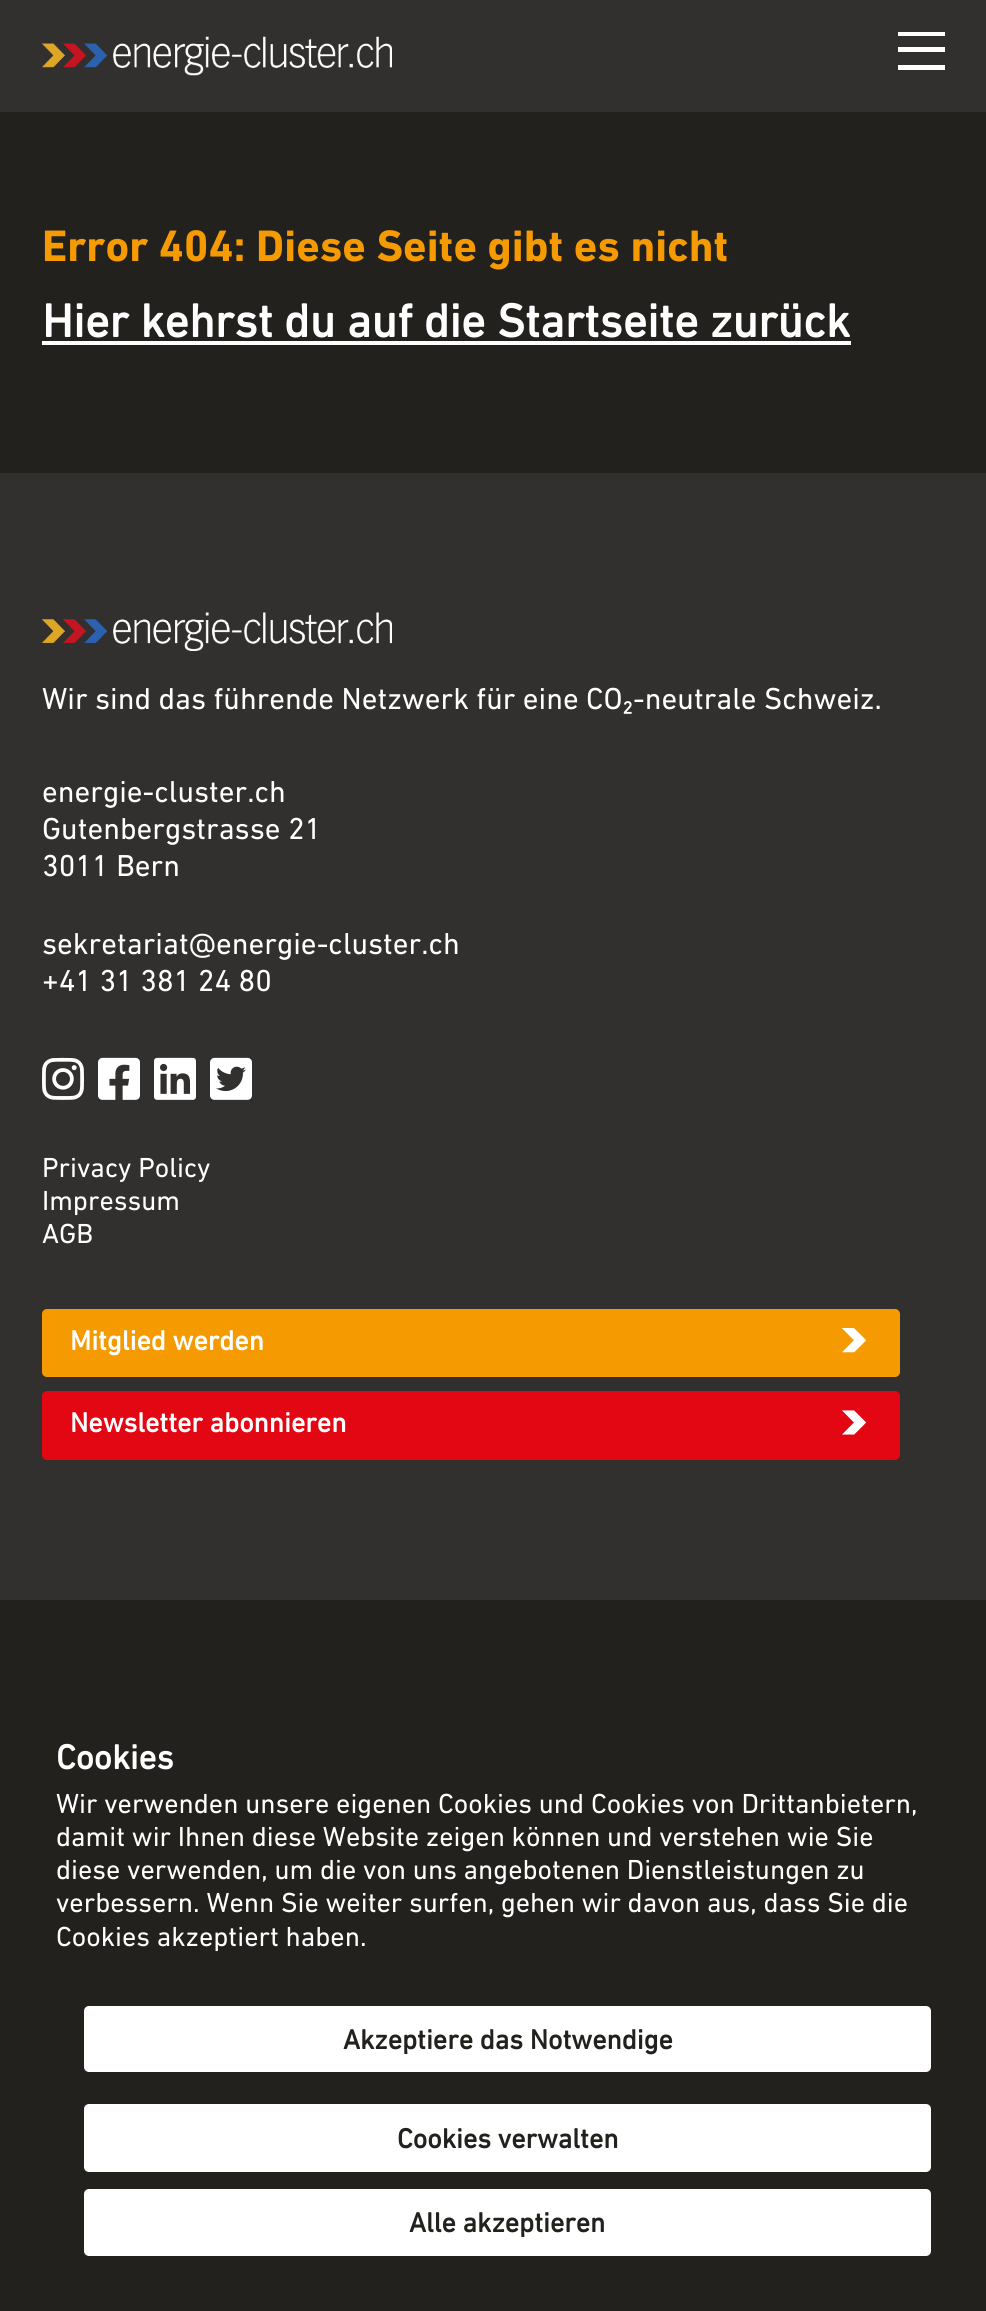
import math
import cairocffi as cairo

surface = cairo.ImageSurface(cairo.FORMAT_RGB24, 986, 2311)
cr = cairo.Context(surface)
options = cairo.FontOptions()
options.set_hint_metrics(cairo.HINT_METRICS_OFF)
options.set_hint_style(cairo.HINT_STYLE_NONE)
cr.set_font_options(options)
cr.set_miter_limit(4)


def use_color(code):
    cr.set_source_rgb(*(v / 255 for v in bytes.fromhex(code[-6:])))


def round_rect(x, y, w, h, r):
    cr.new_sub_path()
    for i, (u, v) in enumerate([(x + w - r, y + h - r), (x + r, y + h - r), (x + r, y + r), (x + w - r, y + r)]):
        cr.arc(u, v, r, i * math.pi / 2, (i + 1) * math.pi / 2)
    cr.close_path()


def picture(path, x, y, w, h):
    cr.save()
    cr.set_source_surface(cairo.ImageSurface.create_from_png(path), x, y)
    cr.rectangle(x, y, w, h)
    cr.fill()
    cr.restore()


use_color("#22211d")
cr.paint()
use_color("#31302e")
cr.rectangle(0, 0, 986, 112)
cr.fill()
picture("img1.png", 42, 36, 350, 40)
use_color("#ffffff")
cr.rectangle(898, 32, 47, 4)
cr.fill()
cr.rectangle(898, 47, 47, 5)
cr.fill()
cr.rectangle(898, 65, 47, 5)
cr.fill()
cr.select_font_face("DIN Next", cairo.FONT_SLANT_NORMAL, cairo.FONT_WEIGHT_BOLD)
cr.set_font_size(44.75)
use_color("#f59a00")
cr.move_to(42, 261)
cr.show_text("Error 404: Diese Seite gibt es nicht")
cr.select_font_face("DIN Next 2", cairo.FONT_SLANT_NORMAL, cairo.FONT_WEIGHT_BOLD)
cr.set_font_size(47.6)
use_color("#ffffff")
cr.move_to(42, 337)
cr.show_text("Hier kehrst du auf die Startseite zurück")
cr.rectangle(42, 341, 809, 4)
cr.fill()
use_color("#31302e")
cr.rectangle(0, 473, 986, 1127)
cr.fill()
picture("img2.png", 42, 612, 350, 39)
cr.select_font_face("DIN Next")
cr.set_font_size(30.8)
use_color("#ffffff")
cr.move_to(42, 709)
cr.show_text("Wir sind das führende Netzwerk für eine CO₂-neutrale Schweiz.")
cr.move_to(42, 802)
cr.show_text("energie-cluster.ch")
cr.move_to(42, 839)
cr.show_text("Gutenbergstrasse 21")
cr.move_to(42, 876)
cr.show_text("3011 Bern")
cr.move_to(42, 954)
cr.show_text("sekretariat@energie-cluster.ch")
cr.move_to(42, 991)
cr.show_text("+41 31 381 24 80")
picture("img3.png", 42, 1057, 42, 43)
picture("img4.png", 98, 1057, 42, 43)
picture("img5.png", 154, 1057, 42, 43)
picture("img6.png", 210, 1057, 42, 43)
cr.set_font_size(28)
cr.move_to(42, 1177)
cr.show_text("Privacy Policy")
cr.move_to(42, 1210)
cr.show_text("Impressum")
cr.move_to(42, 1243)
cr.show_text("AGB")
use_color("#f59a00")
round_rect(42, 1309, 858, 68, 5)
cr.fill()
cr.select_font_face("DIN Next 2", cairo.FONT_SLANT_NORMAL, cairo.FONT_WEIGHT_BOLD)
use_color("#ffffff")
cr.move_to(70, 1350)
cr.show_text("Mitglied werden")
picture("img7.png", 842, 1328, 24, 25)
use_color("#e30613")
round_rect(42, 1391, 858, 69, 5)
cr.fill()
use_color("#ffffff")
cr.move_to(70, 1432)
cr.show_text("Newsletter abonnieren")
picture("img8.png", 842, 1410, 24, 25)
cr.set_font_size(35)
cr.move_to(56, 1769)
cr.show_text("Cookies")
cr.select_font_face("DIN Next")
cr.set_font_size(28)
cr.move_to(56, 1813)
cr.show_text("Wir verwenden unsere eigenen Cookies und Cookies von Drittanbietern,")
cr.move_to(56, 1846)
cr.show_text("damit wir Ihnen diese Website zeigen können und verstehen wie Sie")
cr.move_to(56, 1879)
cr.show_text("diese verwenden, um die von uns angebotenen Dienstleistungen zu")
cr.move_to(56, 1912)
cr.show_text("verbessern. Wenn Sie weiter surfen, gehen wir davon aus, dass Sie die")
cr.move_to(56, 1946)
cr.show_text("Cookies akzeptiert haben.")
round_rect(84, 2006, 847, 66, 5)
cr.fill()
cr.select_font_face("DIN Next 2", cairo.FONT_SLANT_NORMAL, cairo.FONT_WEIGHT_BOLD)
use_color("#22211d")
cr.move_to(343, 2049)
cr.show_text("Akzeptiere das Notwendige")
use_color("#ffffff")
round_rect(84, 2104, 847, 68, 5)
cr.fill()
use_color("#22211d")
cr.move_to(397, 2148)
cr.show_text("Cookies verwalten")
use_color("#ffffff")
round_rect(84, 2189, 847, 67, 5)
cr.fill()
use_color("#22211d")
cr.move_to(409, 2232)
cr.show_text("Alle akzeptieren")
surface.write_to_png("result.png")
